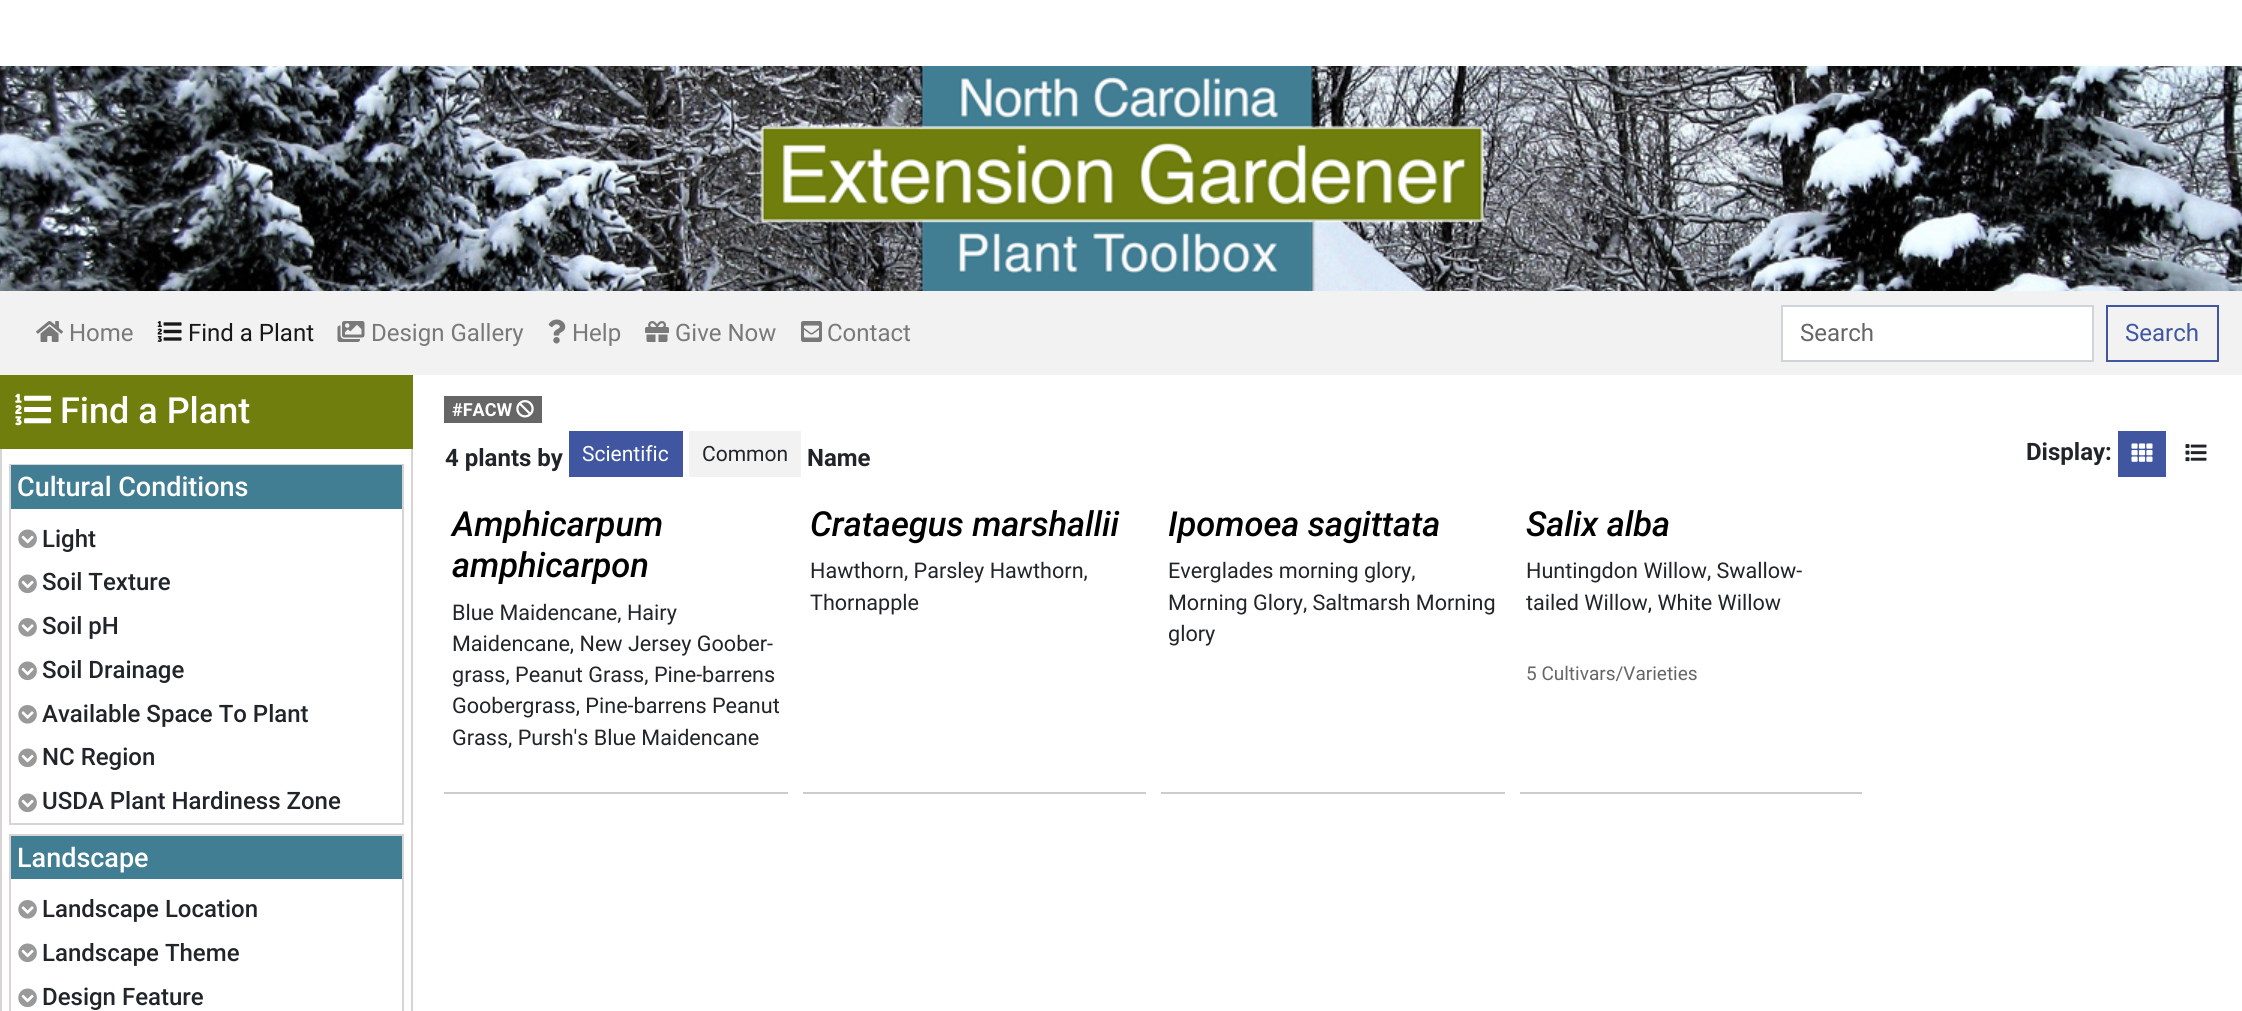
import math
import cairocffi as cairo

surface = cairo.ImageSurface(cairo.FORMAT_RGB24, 2242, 1011)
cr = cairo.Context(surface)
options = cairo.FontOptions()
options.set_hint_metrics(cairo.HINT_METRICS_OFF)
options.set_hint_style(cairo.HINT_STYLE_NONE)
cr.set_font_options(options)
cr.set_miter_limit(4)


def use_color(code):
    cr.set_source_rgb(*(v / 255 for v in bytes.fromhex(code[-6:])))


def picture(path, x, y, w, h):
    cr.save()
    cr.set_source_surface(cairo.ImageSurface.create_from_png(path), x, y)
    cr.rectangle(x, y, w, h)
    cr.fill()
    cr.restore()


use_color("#ffffff")
cr.paint()
picture("img1.png", 0, 66, 2242, 225)
picture("img2.png", 760, 66, 724, 225)
use_color("#f2f2f2")
cr.rectangle(0, 291, 2242, 84)
cr.fill()
picture("img3.png", 36, 321, 27, 21)
cr.select_font_face("Roboto")
cr.set_font_size(24)
use_color("#797979")
cr.move_to(69, 341)
cr.show_text("Home")
picture("img4.png", 157, 321, 25, 21)
use_color("#181818")
cr.move_to(188, 341)
cr.show_text("Find a Plant")
picture("img5.png", 337, 321, 28, 21)
use_color("#797979")
cr.move_to(371, 341)
cr.show_text("Design Gallery")
picture("img6.png", 548, 319, 18, 25)
cr.move_to(572, 341)
cr.show_text("Help")
picture("img7.png", 645, 321, 24, 21)
cr.move_to(675, 341)
cr.show_text("Give Now")
picture("img8.png", 801, 321, 21, 21)
cr.move_to(827, 341)
cr.show_text("Contact")
use_color("#ffffff")
cr.rectangle(1782, 306, 311, 55)
cr.fill_preserve()
use_color("#ced4da")
cr.stroke()
use_color("#666666")
cr.move_to(1800, 341)
cr.show_text("Search")
cr.rectangle(2107, 306, 111, 55)
use_color("#4156a1")
cr.stroke()
cr.move_to(2125, 341)
cr.show_text("Search")
use_color("#d6d5d3")
cr.rectangle(411, 449, 2, 562)
cr.fill()
cr.rectangle(0, 449, 2, 562)
cr.fill()
use_color("#6f7e0d")
cr.rectangle(0, 375, 413, 74)
cr.fill()
picture("img9.png", 15, 393, 37, 33)
cr.select_font_face("Roboto Medium")
cr.set_font_size(36)
use_color("#ffffff")
cr.move_to(60, 423)
cr.show_text("Find a Plant")
cr.rectangle(10, 465, 393, 359)
use_color("#d6d5d3")
cr.stroke()
use_color("#427e93")
cr.rectangle(11, 465, 391, 44)
cr.fill()
cr.set_font_size(27)
use_color("#ffffff")
cr.move_to(17, 496)
cr.show_text("Cultural Conditions")
picture("img10.png", 18, 529, 19, 20)
cr.set_font_size(24)
use_color("#212529")
cr.move_to(42, 547)
cr.show_text("Light")
picture("img10.png", 18, 574, 19, 20)
cr.move_to(42, 590)
cr.show_text("Soil Texture")
picture("img11.png", 18, 618, 19, 19)
cr.move_to(42, 634)
cr.show_text("Soil pH")
picture("img10.png", 18, 661, 19, 20)
cr.move_to(42, 678)
cr.show_text("Soil Drainage")
picture("img11.png", 18, 705, 19, 19)
cr.move_to(42, 722)
cr.show_text("Available Space To Plant")
picture("img10.png", 18, 748, 19, 20)
cr.move_to(42, 765)
cr.show_text("NC Region")
picture("img10.png", 18, 793, 19, 20)
cr.move_to(42, 809)
cr.show_text("USDA Plant Hardiness Zone")
cr.rectangle(10, 835, 393, 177)
use_color("#d6d5d3")
cr.stroke()
use_color("#427e93")
cr.rectangle(11, 836, 391, 43)
cr.fill()
cr.set_font_size(27)
use_color("#ffffff")
cr.move_to(17, 867)
cr.show_text("Landscape")
picture("img11.png", 18, 900, 19, 19)
cr.set_font_size(24)
use_color("#212529")
cr.move_to(42, 917)
cr.show_text("Landscape Location")
picture("img10.png", 18, 943, 19, 20)
cr.move_to(42, 961)
cr.show_text("Landscape Theme")
picture("img10.png", 18, 988, 19, 20)
cr.move_to(42, 1005)
cr.show_text("Design Feature")
use_color("#666666")
cr.rectangle(444, 396, 98, 27)
cr.fill()
cr.select_font_face("Roboto", cairo.FONT_SLANT_NORMAL, cairo.FONT_WEIGHT_BOLD)
cr.set_font_size(18)
use_color("#ffffff")
cr.move_to(452, 416)
cr.show_text("#FACW")
picture("img12.png", 516, 400, 18, 18)
cr.set_font_size(24)
use_color("#212529")
cr.move_to(445, 466)
cr.show_text("4 plants by")
use_color("#4156a1")
cr.rectangle(569, 431, 114, 46)
cr.fill()
cr.select_font_face("Roboto")
cr.set_font_size(21)
use_color("#ffffff")
cr.move_to(582, 461)
cr.show_text("Scientific")
use_color("#f2f2f2")
cr.rectangle(689, 431, 112, 46)
cr.fill()
use_color("#212529")
cr.move_to(702, 461)
cr.show_text("Common")
cr.select_font_face("Roboto", cairo.FONT_SLANT_NORMAL, cairo.FONT_WEIGHT_BOLD)
cr.set_font_size(24)
cr.move_to(807, 466)
cr.show_text("Name")
cr.move_to(2026, 460)
cr.show_text("Display:")
use_color("#4156a1")
cr.rectangle(2118, 431, 48, 46)
cr.fill()
picture("img13.png", 2131, 443, 22, 19)
picture("img14.png", 2185, 444, 22, 18)
use_color("#cccccc")
cr.rectangle(444, 792, 344, 2)
cr.fill()
cr.select_font_face("Roboto Medium", cairo.FONT_SLANT_ITALIC)
cr.set_font_size(34.5)
use_color("#000000")
cr.move_to(452, 536)
cr.show_text("Amphicarpum")
cr.move_to(452, 577)
cr.show_text("amphicarpon")
cr.select_font_face("Roboto")
cr.set_font_size(21.6)
use_color("#212529")
cr.move_to(452, 620)
cr.show_text("Blue Maidencane, Hairy")
cr.move_to(452, 651)
cr.show_text("Maidencane, New Jersey Goober-")
cr.move_to(452, 682)
cr.show_text("grass, Peanut Grass, Pine-barrens")
cr.move_to(452, 713)
cr.show_text("Goobergrass, Pine-barrens Peanut")
cr.move_to(452, 745)
cr.show_text("Grass, Pursh's Blue Maidencane")
use_color("#cccccc")
cr.rectangle(803, 792, 343, 2)
cr.fill()
cr.select_font_face("Roboto Medium", cairo.FONT_SLANT_ITALIC)
cr.set_font_size(34.5)
use_color("#000000")
cr.move_to(810, 536)
cr.show_text("Crataegus marshallii")
cr.select_font_face("Roboto")
cr.set_font_size(21.6)
use_color("#212529")
cr.move_to(810, 578)
cr.show_text("Hawthorn, Parsley Hawthorn,")
cr.move_to(810, 610)
cr.show_text("Thornapple")
use_color("#cccccc")
cr.rectangle(1161, 792, 344, 2)
cr.fill()
cr.select_font_face("Roboto Medium", cairo.FONT_SLANT_ITALIC)
cr.set_font_size(34.5)
use_color("#000000")
cr.move_to(1168, 536)
cr.show_text("Ipomoea sagittata")
cr.select_font_face("Roboto")
cr.set_font_size(21.6)
use_color("#212529")
cr.move_to(1168, 578)
cr.show_text("Everglades morning glory,")
cr.move_to(1168, 610)
cr.show_text("Morning Glory, Saltmarsh Morning")
cr.move_to(1168, 641)
cr.show_text("glory")
use_color("#cccccc")
cr.rectangle(1520, 792, 342, 2)
cr.fill()
cr.select_font_face("Roboto Medium", cairo.FONT_SLANT_ITALIC)
cr.set_font_size(34.5)
use_color("#000000")
cr.move_to(1526, 536)
cr.show_text("Salix alba")
cr.select_font_face("Roboto")
cr.set_font_size(21.6)
use_color("#212529")
cr.move_to(1526, 578)
cr.show_text("Huntingdon Willow, Swallow-")
cr.move_to(1526, 610)
cr.show_text("tailed Willow, White Willow")
cr.set_font_size(19)
use_color("#666666")
cr.move_to(1526, 680)
cr.show_text("5 Cultivars/Varieties")
surface.write_to_png("result.png")
